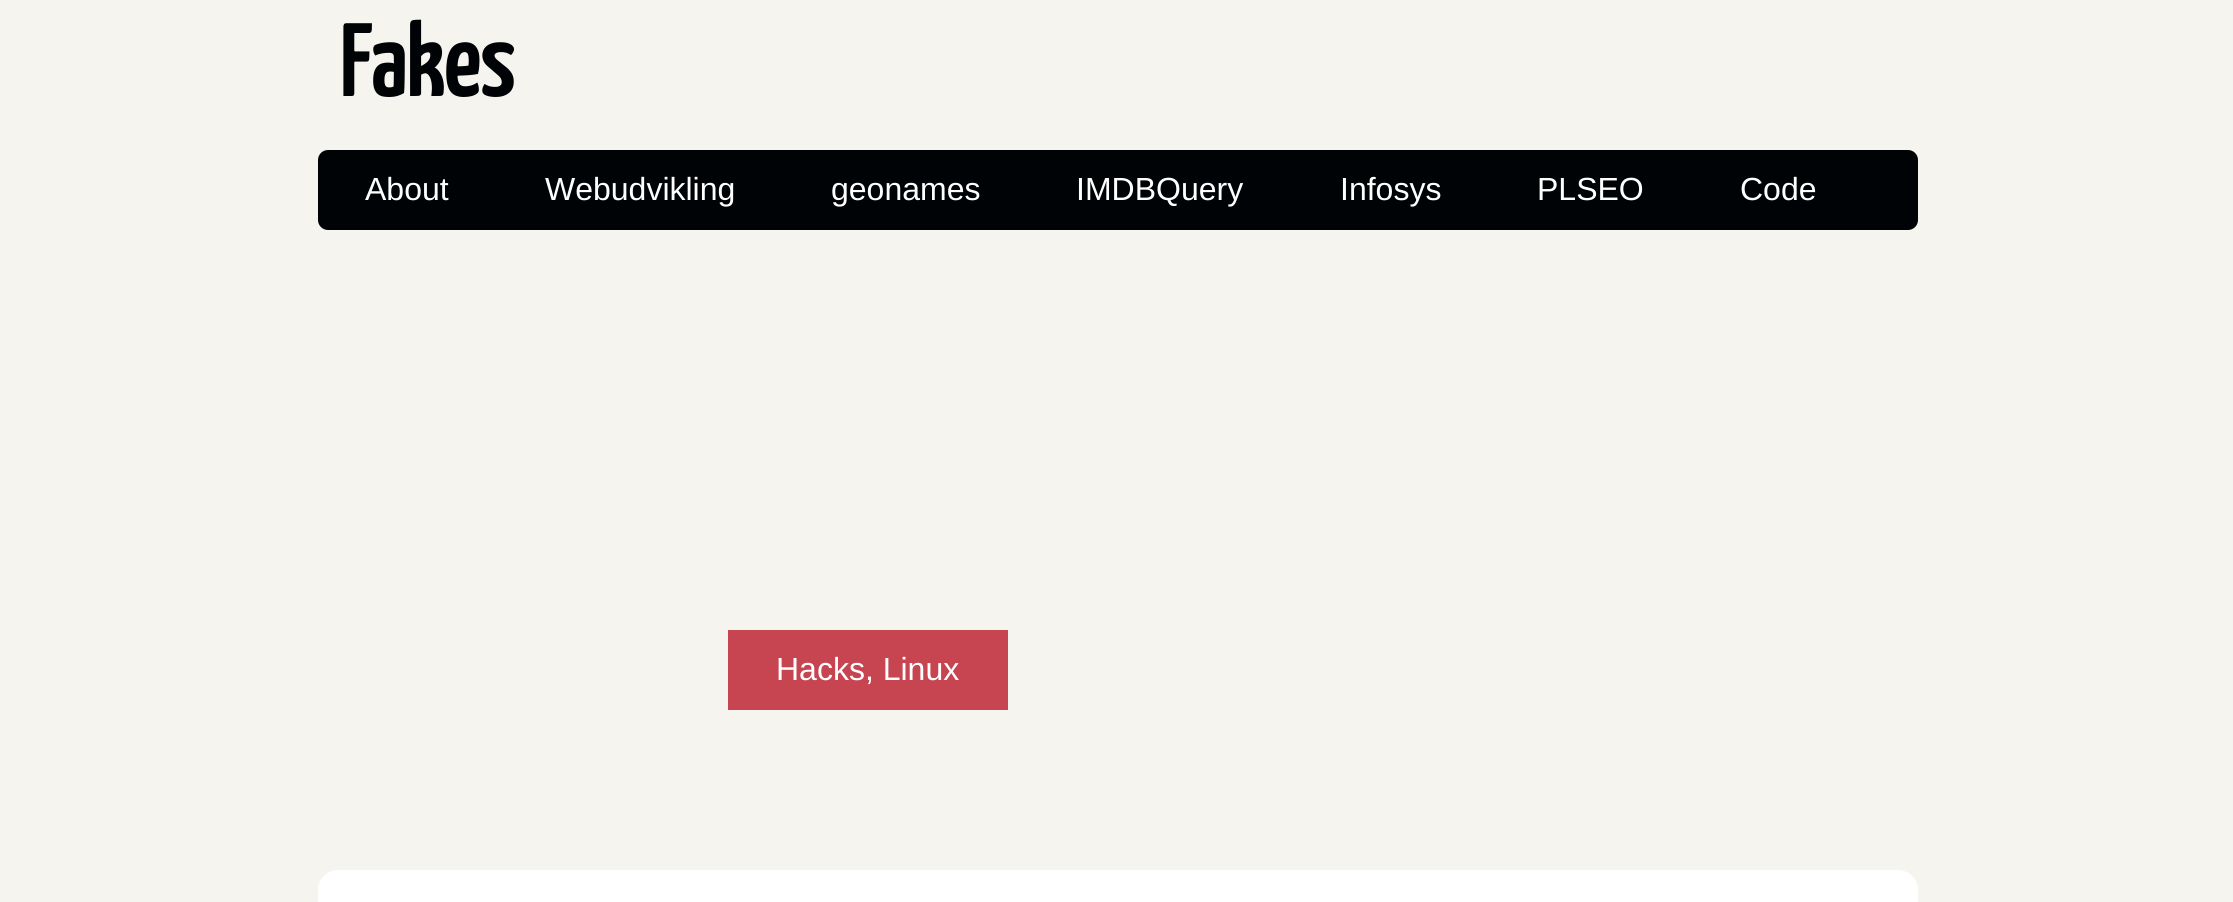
import math
import cairocffi as cairo

surface = cairo.ImageSurface(cairo.FORMAT_RGB24, 2233, 902)
cr = cairo.Context(surface)
options = cairo.FontOptions()
options.set_hint_metrics(cairo.HINT_METRICS_OFF)
options.set_hint_style(cairo.HINT_STYLE_NONE)
cr.set_font_options(options)
cr.set_miter_limit(4)


def use_color(code):
    cr.set_source_rgb(*(v / 255 for v in bytes.fromhex(code[-6:])))


def round_rect(x, y, w, h, r):
    cr.new_sub_path()
    for i, (u, v) in enumerate([(x + w - r, y + h - r), (x + r, y + h - r), (x + r, y + r), (x + w - r, y + r)]):
        cr.arc(u, v, r, i * math.pi / 2, (i + 1) * math.pi / 2)
    cr.close_path()


use_color("#f5f4ef")
cr.paint()
cr.select_font_face("Yanone Kaffeesatz", cairo.FONT_SLANT_NORMAL, cairo.FONT_WEIGHT_BOLD)
cr.set_font_size(100)
use_color("#000305")
cr.move_to(339, 96)
cr.show_text("Fakes")
round_rect(318, 150, 1600, 80, 10)
cr.fill()
cr.select_font_face("Liberation Sans")
cr.set_font_size(32)
use_color("#ffffff")
cr.move_to(365, 200)
cr.show_text("About")
cr.move_to(545, 200)
cr.show_text("Webudvikling")
cr.move_to(831, 200)
cr.show_text("geonames")
cr.move_to(1076, 200)
cr.show_text("IMDBQuery")
cr.move_to(1340, 200)
cr.show_text("Infosys")
cr.move_to(1537, 200)
cr.show_text("PLSEO")
cr.move_to(1740, 200)
cr.show_text("Code")
use_color("#c74451")
cr.rectangle(728, 630, 280, 80)
cr.fill()
use_color("#ffffff")
cr.move_to(776, 680)
cr.show_text("Hacks, Linux")
round_rect(318, 870, 1600, 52, 20)
cr.fill()
surface.write_to_png("result.png")
